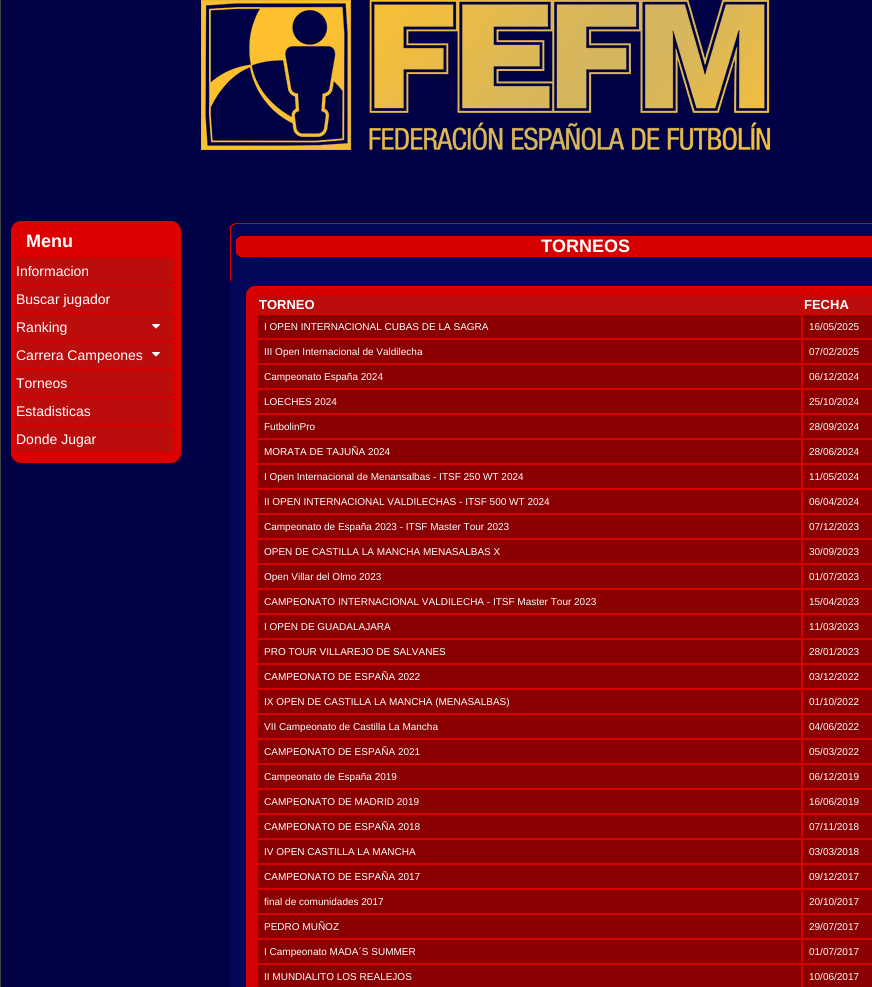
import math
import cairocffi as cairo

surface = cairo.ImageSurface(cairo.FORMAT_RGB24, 872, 987)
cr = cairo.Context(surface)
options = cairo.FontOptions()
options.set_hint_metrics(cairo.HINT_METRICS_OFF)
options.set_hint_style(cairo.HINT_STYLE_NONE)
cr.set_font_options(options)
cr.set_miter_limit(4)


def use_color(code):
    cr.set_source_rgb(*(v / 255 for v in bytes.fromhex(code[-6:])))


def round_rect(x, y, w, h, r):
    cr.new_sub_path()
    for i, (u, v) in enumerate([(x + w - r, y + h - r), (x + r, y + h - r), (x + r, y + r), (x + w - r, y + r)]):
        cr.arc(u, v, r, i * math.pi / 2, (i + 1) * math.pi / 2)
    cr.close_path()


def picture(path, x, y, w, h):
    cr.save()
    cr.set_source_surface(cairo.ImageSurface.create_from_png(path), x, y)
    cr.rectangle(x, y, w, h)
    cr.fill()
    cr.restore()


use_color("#000144")
cr.paint()
use_color("#444444")
cr.rectangle(0, 0, 1, 987)
cr.fill()
picture("img1.png", 201, 0, 569, 150)
use_color("#dd0000")
round_rect(11, 221, 170, 242, 10)
cr.fill()
cr.select_font_face("Liberation Sans", cairo.FONT_SLANT_NORMAL, cairo.FONT_WEIGHT_BOLD)
cr.set_font_size(18)
use_color("#ffffff")
cr.move_to(26, 247)
cr.show_text("Menu")
use_color("#bc0d0d")
cr.rectangle(16, 258, 157, 26)
cr.fill()
use_color("#d70000")
cr.rectangle(16, 257, 157, 1)
cr.fill()
cr.rectangle(16, 284, 157, 2)
cr.fill()
cr.select_font_face("Liberation Sans")
cr.set_font_size(14)
use_color("#ffffff")
cr.move_to(16, 276)
cr.show_text("Informacion")
use_color("#bc0d0d")
cr.rectangle(16, 286, 157, 26)
cr.fill()
use_color("#d70000")
cr.rectangle(16, 312, 157, 2)
cr.fill()
use_color("#ffffff")
cr.move_to(16, 304)
cr.show_text("Buscar jugador")
use_color("#bc0d0d")
cr.rectangle(16, 314, 157, 26)
cr.fill()
use_color("#d70000")
cr.rectangle(16, 340, 157, 2)
cr.fill()
use_color("#ffffff")
cr.move_to(16, 332)
cr.show_text("Ranking")
picture("img2.png", 152, 324, 8, 5)
use_color("#bc0d0d")
cr.rectangle(16, 342, 157, 26)
cr.fill()
use_color("#d70000")
cr.rectangle(16, 368, 157, 2)
cr.fill()
use_color("#ffffff")
cr.move_to(16, 360)
cr.show_text("Carrera Campeones")
picture("img2.png", 152, 352, 8, 5)
use_color("#bc0d0d")
cr.rectangle(16, 370, 157, 26)
cr.fill()
use_color("#d70000")
cr.rectangle(16, 396, 157, 2)
cr.fill()
use_color("#ffffff")
cr.move_to(16, 388)
cr.show_text("Torneos")
use_color("#bc0d0d")
cr.rectangle(16, 398, 157, 26)
cr.fill()
use_color("#d70000")
cr.rectangle(16, 424, 157, 2)
cr.fill()
use_color("#ffffff")
cr.move_to(16, 416)
cr.show_text("Estadisticas")
use_color("#bc0d0d")
cr.rectangle(16, 426, 157, 26)
cr.fill()
use_color("#d70000")
cr.rectangle(16, 452, 157, 1)
cr.fill()
use_color("#ffffff")
cr.move_to(16, 444)
cr.show_text("Donde Jugar")
picture("img3.png", 230, 223, 642, 58)
picture("img4.png", 236, 236, 636, 21)
cr.select_font_face("Liberation Sans", cairo.FONT_SLANT_NORMAL, cairo.FONT_WEIGHT_BOLD)
cr.set_font_size(18)
cr.move_to(541, 252)
cr.show_text("TORNEOS")
use_color("#040758")
cr.rectangle(230, 281, 642, 706)
cr.fill()
picture("img5.png", 246, 286, 626, 8)
use_color("#d70000")
cr.rectangle(246, 294, 626, 693)
cr.fill()
use_color("#bc0d0d")
cr.rectangle(258, 296, 543, 17)
cr.fill()
cr.set_font_size(13)
use_color("#ffffff")
cr.move_to(259, 309)
cr.show_text("TORNEO")
use_color("#bc0d0d")
cr.rectangle(803, 296, 69, 17)
cr.fill()
use_color("#ffffff")
cr.move_to(804, 309)
cr.show_text("FECHA")
use_color("#8a0000")
cr.rectangle(258, 315, 543, 23)
cr.fill()
cr.select_font_face("Liberation Sans")
cr.set_font_size(10)
use_color("#ffffff")
cr.move_to(264, 330)
cr.show_text("I OPEN INTERNACIONAL CUBAS DE LA SAGRA")
use_color("#8a0000")
cr.rectangle(803, 315, 69, 23)
cr.fill()
use_color("#ffffff")
cr.move_to(809, 330)
cr.show_text("16/05/2025")
use_color("#8a0000")
cr.rectangle(258, 340, 543, 23)
cr.fill()
use_color("#ffffff")
cr.move_to(264, 355)
cr.show_text("III Open Internacional de Valdilecha")
use_color("#8a0000")
cr.rectangle(803, 340, 69, 23)
cr.fill()
use_color("#ffffff")
cr.move_to(809, 355)
cr.show_text("07/02/2025")
use_color("#8a0000")
cr.rectangle(258, 365, 543, 23)
cr.fill()
use_color("#ffffff")
cr.move_to(264, 380)
cr.show_text("Campeonato España 2024")
use_color("#8a0000")
cr.rectangle(803, 365, 69, 23)
cr.fill()
use_color("#ffffff")
cr.move_to(809, 380)
cr.show_text("06/12/2024")
use_color("#8a0000")
cr.rectangle(258, 390, 543, 23)
cr.fill()
use_color("#ffffff")
cr.move_to(264, 405)
cr.show_text("LOECHES 2024")
use_color("#8a0000")
cr.rectangle(803, 390, 69, 23)
cr.fill()
use_color("#ffffff")
cr.move_to(809, 405)
cr.show_text("25/10/2024")
use_color("#8a0000")
cr.rectangle(258, 415, 543, 23)
cr.fill()
use_color("#ffffff")
cr.move_to(264, 430)
cr.show_text("FutbolinPro")
use_color("#8a0000")
cr.rectangle(803, 415, 69, 23)
cr.fill()
use_color("#ffffff")
cr.move_to(809, 430)
cr.show_text("28/09/2024")
use_color("#8a0000")
cr.rectangle(258, 440, 543, 23)
cr.fill()
use_color("#ffffff")
cr.move_to(264, 455)
cr.show_text("MORATA DE TAJUÑA 2024")
use_color("#8a0000")
cr.rectangle(803, 440, 69, 23)
cr.fill()
use_color("#ffffff")
cr.move_to(809, 455)
cr.show_text("28/06/2024")
use_color("#8a0000")
cr.rectangle(258, 465, 543, 23)
cr.fill()
use_color("#ffffff")
cr.move_to(264, 480)
cr.show_text("I Open Internacional de Menansalbas - ITSF 250 WT 2024")
use_color("#8a0000")
cr.rectangle(803, 465, 69, 23)
cr.fill()
use_color("#ffffff")
cr.move_to(809, 480)
cr.show_text("11/05/2024")
use_color("#8a0000")
cr.rectangle(258, 490, 543, 23)
cr.fill()
use_color("#ffffff")
cr.move_to(264, 505)
cr.show_text("II OPEN INTERNACIONAL VALDILECHAS - ITSF 500 WT 2024")
use_color("#8a0000")
cr.rectangle(803, 490, 69, 23)
cr.fill()
use_color("#ffffff")
cr.move_to(809, 505)
cr.show_text("06/04/2024")
use_color("#8a0000")
cr.rectangle(258, 515, 543, 23)
cr.fill()
use_color("#ffffff")
cr.move_to(264, 530)
cr.show_text("Campeonato de España 2023 - ITSF Master Tour 2023")
use_color("#8a0000")
cr.rectangle(803, 515, 69, 23)
cr.fill()
use_color("#ffffff")
cr.move_to(809, 530)
cr.show_text("07/12/2023")
use_color("#8a0000")
cr.rectangle(258, 540, 543, 23)
cr.fill()
use_color("#ffffff")
cr.move_to(264, 555)
cr.show_text("OPEN DE CASTILLA LA MANCHA MENASALBAS X")
use_color("#8a0000")
cr.rectangle(803, 540, 69, 23)
cr.fill()
use_color("#ffffff")
cr.move_to(809, 555)
cr.show_text("30/09/2023")
use_color("#8a0000")
cr.rectangle(258, 565, 543, 23)
cr.fill()
use_color("#ffffff")
cr.move_to(264, 580)
cr.show_text("Open Villar del Olmo 2023")
use_color("#8a0000")
cr.rectangle(803, 565, 69, 23)
cr.fill()
use_color("#ffffff")
cr.move_to(809, 580)
cr.show_text("01/07/2023")
use_color("#8a0000")
cr.rectangle(258, 590, 543, 23)
cr.fill()
use_color("#ffffff")
cr.move_to(264, 605)
cr.show_text("CAMPEONATO INTERNACIONAL VALDILECHA - ITSF Master Tour 2023")
use_color("#8a0000")
cr.rectangle(803, 590, 69, 23)
cr.fill()
use_color("#ffffff")
cr.move_to(809, 605)
cr.show_text("15/04/2023")
use_color("#8a0000")
cr.rectangle(258, 615, 543, 23)
cr.fill()
use_color("#ffffff")
cr.move_to(264, 630)
cr.show_text("I OPEN DE GUADALAJARA")
use_color("#8a0000")
cr.rectangle(803, 615, 69, 23)
cr.fill()
use_color("#ffffff")
cr.move_to(809, 630)
cr.show_text("11/03/2023")
use_color("#8a0000")
cr.rectangle(258, 640, 543, 23)
cr.fill()
use_color("#ffffff")
cr.move_to(264, 655)
cr.show_text("PRO TOUR VILLAREJO DE SALVANES")
use_color("#8a0000")
cr.rectangle(803, 640, 69, 23)
cr.fill()
use_color("#ffffff")
cr.move_to(809, 655)
cr.show_text("28/01/2023")
use_color("#8a0000")
cr.rectangle(258, 665, 543, 23)
cr.fill()
use_color("#ffffff")
cr.move_to(264, 680)
cr.show_text("CAMPEONATO DE ESPAÑA 2022")
use_color("#8a0000")
cr.rectangle(803, 665, 69, 23)
cr.fill()
use_color("#ffffff")
cr.move_to(809, 680)
cr.show_text("03/12/2022")
use_color("#8a0000")
cr.rectangle(258, 690, 543, 23)
cr.fill()
use_color("#ffffff")
cr.move_to(264, 705)
cr.show_text("IX OPEN DE CASTILLA LA MANCHA (MENASALBAS)")
use_color("#8a0000")
cr.rectangle(803, 690, 69, 23)
cr.fill()
use_color("#ffffff")
cr.move_to(809, 705)
cr.show_text("01/10/2022")
use_color("#8a0000")
cr.rectangle(258, 715, 543, 23)
cr.fill()
use_color("#ffffff")
cr.move_to(264, 730)
cr.show_text("VII Campeonato de Castilla La Mancha")
use_color("#8a0000")
cr.rectangle(803, 715, 69, 23)
cr.fill()
use_color("#ffffff")
cr.move_to(809, 730)
cr.show_text("04/06/2022")
use_color("#8a0000")
cr.rectangle(258, 740, 543, 23)
cr.fill()
use_color("#ffffff")
cr.move_to(264, 755)
cr.show_text("CAMPEONATO DE ESPAÑA 2021")
use_color("#8a0000")
cr.rectangle(803, 740, 69, 23)
cr.fill()
use_color("#ffffff")
cr.move_to(809, 755)
cr.show_text("05/03/2022")
use_color("#8a0000")
cr.rectangle(258, 765, 543, 23)
cr.fill()
use_color("#ffffff")
cr.move_to(264, 780)
cr.show_text("Campeonato de España 2019")
use_color("#8a0000")
cr.rectangle(803, 765, 69, 23)
cr.fill()
use_color("#ffffff")
cr.move_to(809, 780)
cr.show_text("06/12/2019")
use_color("#8a0000")
cr.rectangle(258, 790, 543, 23)
cr.fill()
use_color("#ffffff")
cr.move_to(264, 805)
cr.show_text("CAMPEONATO DE MADRID 2019")
use_color("#8a0000")
cr.rectangle(803, 790, 69, 23)
cr.fill()
use_color("#ffffff")
cr.move_to(809, 805)
cr.show_text("16/06/2019")
use_color("#8a0000")
cr.rectangle(258, 815, 543, 23)
cr.fill()
use_color("#ffffff")
cr.move_to(264, 830)
cr.show_text("CAMPEONATO DE ESPAÑA 2018")
use_color("#8a0000")
cr.rectangle(803, 815, 69, 23)
cr.fill()
use_color("#ffffff")
cr.move_to(809, 830)
cr.show_text("07/11/2018")
use_color("#8a0000")
cr.rectangle(258, 840, 543, 23)
cr.fill()
use_color("#ffffff")
cr.move_to(264, 855)
cr.show_text("IV OPEN CASTILLA LA MANCHA")
use_color("#8a0000")
cr.rectangle(803, 840, 69, 23)
cr.fill()
use_color("#ffffff")
cr.move_to(809, 855)
cr.show_text("03/03/2018")
use_color("#8a0000")
cr.rectangle(258, 865, 543, 23)
cr.fill()
use_color("#ffffff")
cr.move_to(264, 880)
cr.show_text("CAMPEONATO DE ESPAÑA 2017")
use_color("#8a0000")
cr.rectangle(803, 865, 69, 23)
cr.fill()
use_color("#ffffff")
cr.move_to(809, 880)
cr.show_text("09/12/2017")
use_color("#8a0000")
cr.rectangle(258, 890, 543, 23)
cr.fill()
use_color("#ffffff")
cr.move_to(264, 905)
cr.show_text("final de comunidades 2017")
use_color("#8a0000")
cr.rectangle(803, 890, 69, 23)
cr.fill()
use_color("#ffffff")
cr.move_to(809, 905)
cr.show_text("20/10/2017")
use_color("#8a0000")
cr.rectangle(258, 915, 543, 23)
cr.fill()
use_color("#ffffff")
cr.move_to(264, 930)
cr.show_text("PEDRO MUÑOZ")
use_color("#8a0000")
cr.rectangle(803, 915, 69, 23)
cr.fill()
use_color("#ffffff")
cr.move_to(809, 930)
cr.show_text("29/07/2017")
use_color("#8a0000")
cr.rectangle(258, 940, 543, 23)
cr.fill()
use_color("#ffffff")
cr.move_to(264, 955)
cr.show_text("I Campeonato MADA´S SUMMER")
use_color("#8a0000")
cr.rectangle(803, 940, 69, 23)
cr.fill()
use_color("#ffffff")
cr.move_to(809, 955)
cr.show_text("01/07/2017")
use_color("#8a0000")
cr.rectangle(258, 965, 543, 22)
cr.fill()
use_color("#ffffff")
cr.move_to(264, 980)
cr.show_text("II MUNDIALITO LOS REALEJOS")
use_color("#8a0000")
cr.rectangle(803, 965, 69, 22)
cr.fill()
use_color("#ffffff")
cr.move_to(809, 980)
cr.show_text("10/06/2017")
surface.write_to_png("result.png")
